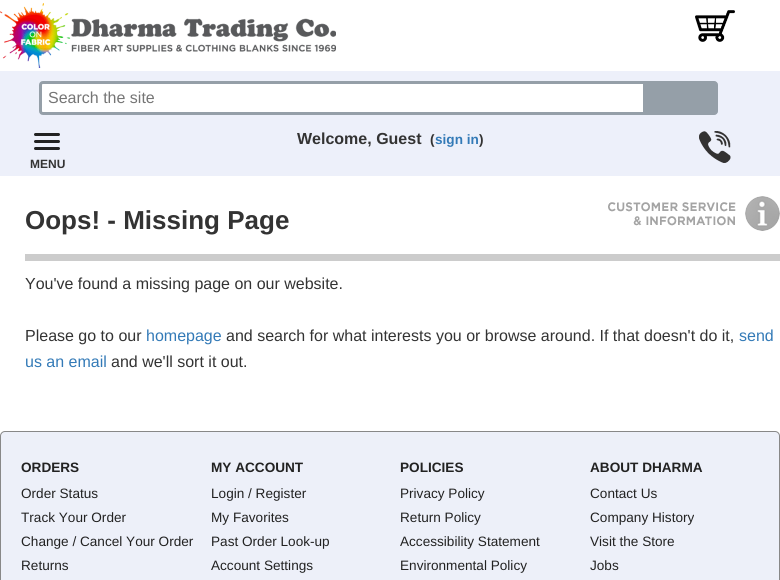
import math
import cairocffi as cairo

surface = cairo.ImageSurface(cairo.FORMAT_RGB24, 780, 580)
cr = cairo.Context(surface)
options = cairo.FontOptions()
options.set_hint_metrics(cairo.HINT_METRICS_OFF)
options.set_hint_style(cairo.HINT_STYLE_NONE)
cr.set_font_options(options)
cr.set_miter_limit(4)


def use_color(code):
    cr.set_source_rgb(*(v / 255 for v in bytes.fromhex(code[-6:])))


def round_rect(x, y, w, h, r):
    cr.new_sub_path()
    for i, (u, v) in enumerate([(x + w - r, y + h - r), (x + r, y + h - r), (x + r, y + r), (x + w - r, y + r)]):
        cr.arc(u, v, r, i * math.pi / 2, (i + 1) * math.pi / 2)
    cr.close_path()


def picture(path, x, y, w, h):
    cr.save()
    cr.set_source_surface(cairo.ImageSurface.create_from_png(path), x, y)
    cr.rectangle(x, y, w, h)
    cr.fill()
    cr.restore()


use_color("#ffffff")
cr.paint()
picture("img1.png", 0, 3, 336, 65)
picture("img2.png", 695, 10, 40, 32)
use_color("#edf0fa")
cr.rectangle(0, 71, 780, 105)
cr.fill()
use_color("#ffffff")
cr.new_path()
cr.move_to(43, 82.5)
cr.line_to(644.5, 82.5)
cr.line_to(644.5, 113.5)
cr.line_to(43, 113.5)
cr.curve_to(41.5, 113.5, 40.5, 112.5, 40.5, 111)
cr.line_to(40.5, 85)
cr.curve_to(40.5, 83.5, 41.5, 82.5, 43, 82.5)
cr.close_path()
cr.fill_preserve()
use_color("#959fa8")
cr.set_line_width(3)
cr.stroke()
cr.select_font_face("Liberation Sans")
cr.set_font_size(16)
use_color("#757575")
cr.move_to(48, 103)
cr.show_text("Search the site")
use_color("#959fa8")
cr.new_path()
cr.move_to(644.5, 81.5)
cr.line_to(714, 81.5)
cr.curve_to(716, 81.5, 717.5, 83, 717.5, 85)
cr.line_to(717.5, 111)
cr.curve_to(717.5, 113, 716, 114.5, 714, 114.5)
cr.line_to(644.5, 114.5)
cr.close_path()
cr.fill_preserve()
cr.set_line_width(1)
cr.stroke()
cr.select_font_face("Liberation Sans", cairo.FONT_SLANT_NORMAL, cairo.FONT_WEIGHT_BOLD)
use_color("#333333")
cr.move_to(297, 144)
cr.show_text("Welcome, Guest")
cr.set_font_size(13.6)
cr.move_to(430, 144)
cr.show_text("(")
use_color("#337ab7")
cr.move_to(435, 144)
cr.show_text("sign in")
use_color("#333333")
cr.move_to(479, 144)
cr.show_text(")")
picture("img3.png", 699, 131, 32, 32)
use_color("#222222")
round_rect(34, 133, 26, 3, 1.5)
cr.fill()
round_rect(34, 140, 26, 3, 1.5)
cr.fill()
round_rect(34, 147, 26, 3, 1.5)
cr.fill()
cr.set_font_size(12)
use_color("#333333")
cr.move_to(30, 168)
cr.show_text("MENU")
cr.set_font_size(26)
cr.move_to(25, 229)
cr.show_text("Oops! - Missing Page")
picture("img4.png", 608, 196, 172, 35)
use_color("#cccccc")
cr.rectangle(25, 254, 755, 7)
cr.fill()
cr.select_font_face("Liberation Sans")
cr.set_font_size(16)
use_color("#333333")
cr.move_to(25, 289)
cr.show_text("You've found a missing page on our website.")
cr.move_to(25, 341)
cr.show_text("Please go to our")
use_color("#337ab7")
cr.move_to(146, 341)
cr.show_text("homepage")
use_color("#333333")
cr.move_to(226, 341)
cr.show_text("and search for what interests you or browse around. If that doesn't do it,")
use_color("#337ab7")
cr.move_to(739, 341)
cr.show_text("send")
cr.move_to(25, 367)
cr.show_text("us an email")
use_color("#333333")
cr.move_to(111, 367)
cr.show_text("and we'll sort it out.")
use_color("#edf0f9")
round_rect(0.5, 431.5, 779, 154, 4.5)
cr.fill_preserve()
use_color("#888888")
cr.stroke()
cr.select_font_face("Liberation Sans", cairo.FONT_SLANT_NORMAL, cairo.FONT_WEIGHT_BOLD)
cr.set_font_size(13.6)
use_color("#222222")
cr.move_to(21, 472)
cr.show_text("ORDERS")
cr.select_font_face("Liberation Sans")
cr.move_to(21, 498)
cr.show_text("Order Status")
cr.move_to(21, 522)
cr.show_text("Track Your Order")
cr.move_to(21, 546)
cr.show_text("Change / Cancel Your Order")
cr.move_to(21, 570)
cr.show_text("Returns")
cr.select_font_face("Liberation Sans", cairo.FONT_SLANT_NORMAL, cairo.FONT_WEIGHT_BOLD)
cr.move_to(211, 472)
cr.show_text("MY ACCOUNT")
cr.select_font_face("Liberation Sans")
cr.move_to(211, 498)
cr.show_text("Login / Register")
cr.move_to(211, 522)
cr.show_text("My Favorites")
cr.move_to(211, 546)
cr.show_text("Past Order Look-up")
cr.move_to(211, 570)
cr.show_text("Account Settings")
cr.select_font_face("Liberation Sans", cairo.FONT_SLANT_NORMAL, cairo.FONT_WEIGHT_BOLD)
cr.move_to(400, 472)
cr.show_text("POLICIES")
cr.select_font_face("Liberation Sans")
cr.move_to(400, 498)
cr.show_text("Privacy Policy")
cr.move_to(400, 522)
cr.show_text("Return Policy")
cr.move_to(400, 546)
cr.show_text("Accessibility Statement")
cr.move_to(400, 570)
cr.show_text("Environmental Policy")
cr.select_font_face("Liberation Sans", cairo.FONT_SLANT_NORMAL, cairo.FONT_WEIGHT_BOLD)
cr.move_to(590, 472)
cr.show_text("ABOUT DHARMA")
cr.select_font_face("Liberation Sans")
cr.move_to(590, 498)
cr.show_text("Contact Us")
cr.move_to(590, 522)
cr.show_text("Company History")
cr.move_to(590, 546)
cr.show_text("Visit the Store")
cr.move_to(590, 570)
cr.show_text("Jobs")
surface.write_to_png("result.png")
